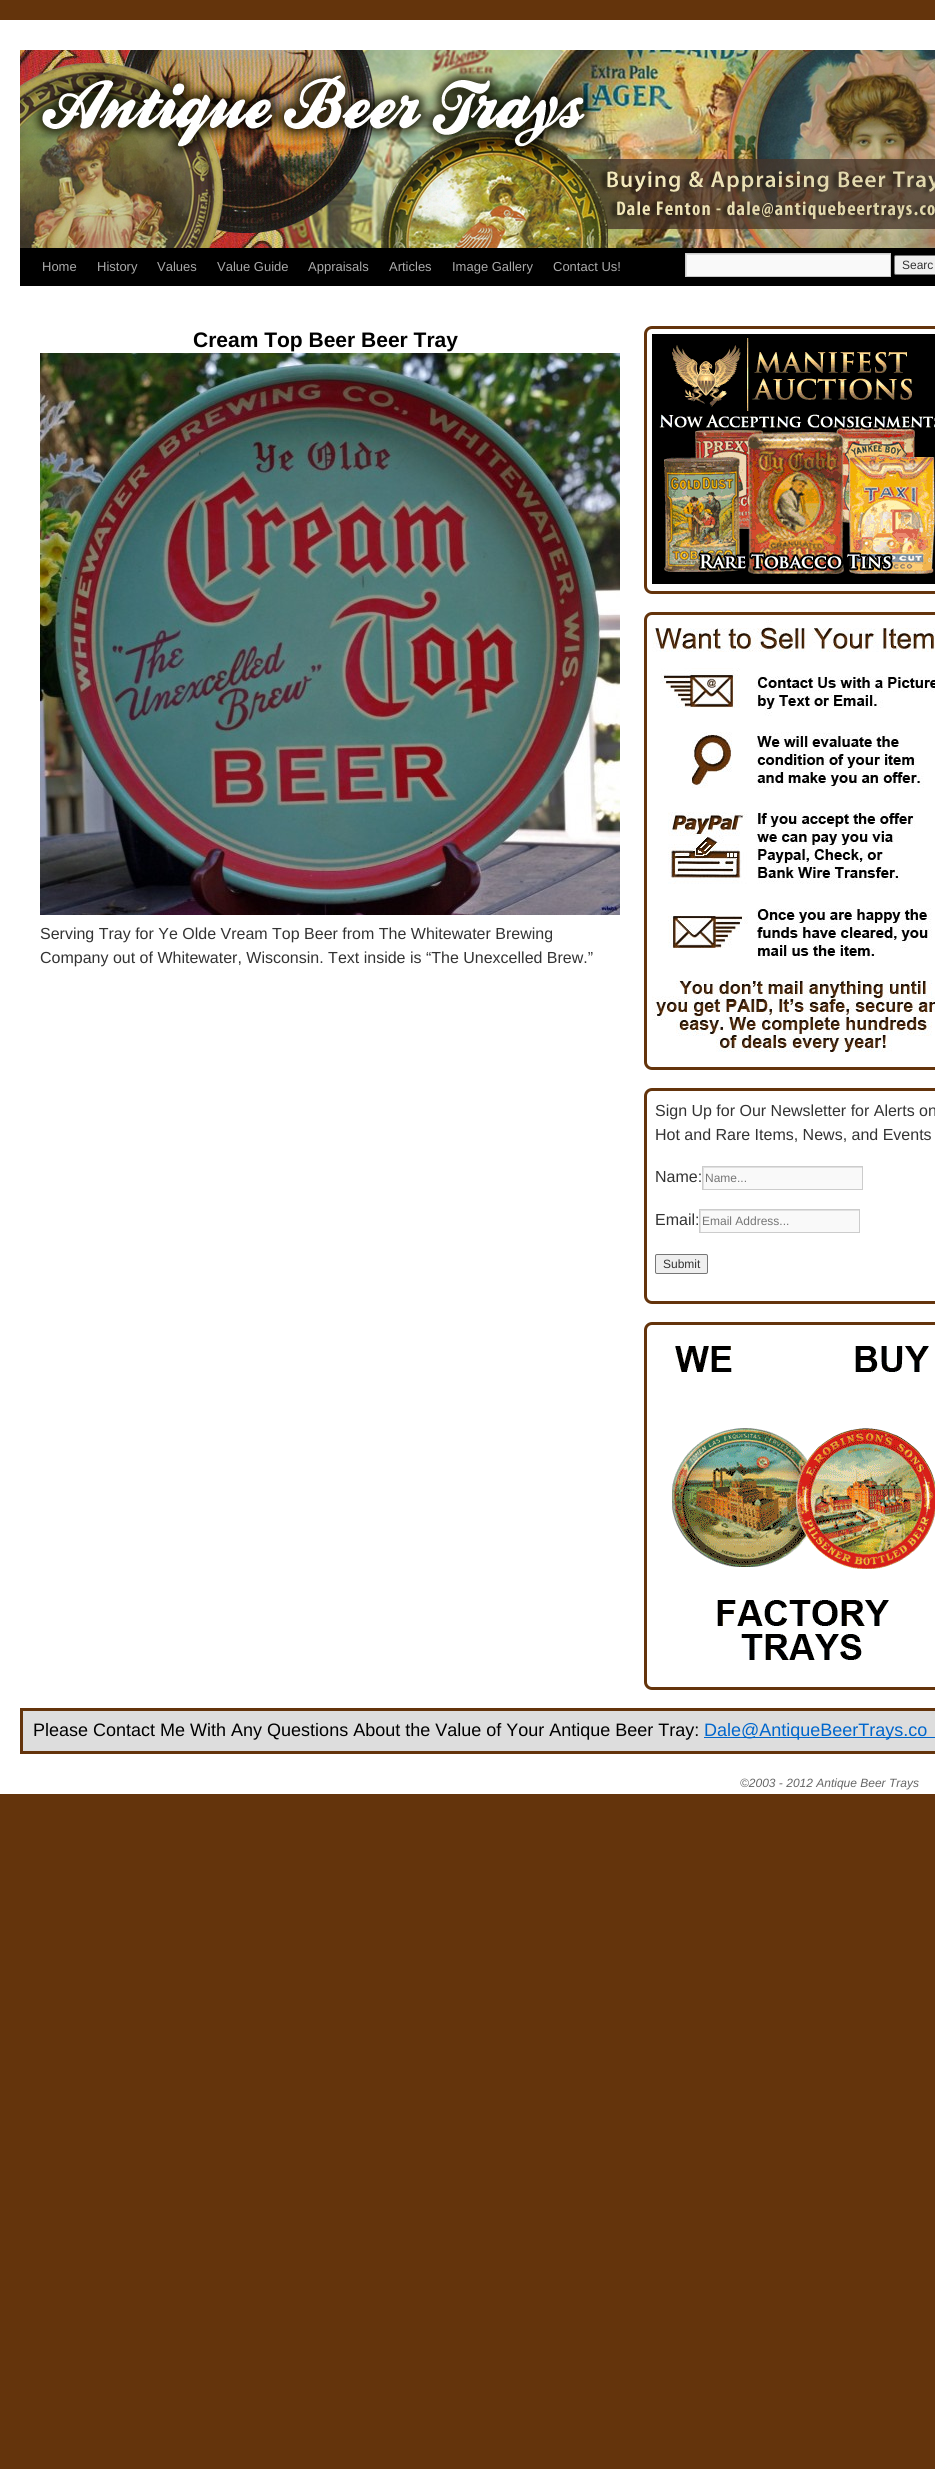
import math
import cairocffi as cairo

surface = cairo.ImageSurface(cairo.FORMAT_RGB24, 935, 2469)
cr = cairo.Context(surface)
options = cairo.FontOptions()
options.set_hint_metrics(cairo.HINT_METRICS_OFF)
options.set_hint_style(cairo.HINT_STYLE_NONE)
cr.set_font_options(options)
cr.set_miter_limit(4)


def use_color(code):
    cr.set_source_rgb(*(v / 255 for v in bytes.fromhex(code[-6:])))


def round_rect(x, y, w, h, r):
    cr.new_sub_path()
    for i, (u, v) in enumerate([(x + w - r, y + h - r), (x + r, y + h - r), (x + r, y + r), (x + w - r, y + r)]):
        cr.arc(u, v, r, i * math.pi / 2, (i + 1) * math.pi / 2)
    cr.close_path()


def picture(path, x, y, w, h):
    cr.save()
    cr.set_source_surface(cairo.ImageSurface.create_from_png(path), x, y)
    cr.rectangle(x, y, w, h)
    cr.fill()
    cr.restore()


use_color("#64340c")
cr.paint()
use_color("#ffffff")
cr.rectangle(0, 20, 935, 1774)
cr.fill()
picture("img1.png", 20, 50, 915, 198)
use_color("#000000")
cr.rectangle(20, 248, 915, 38)
cr.fill()
cr.select_font_face("Liberation Sans")
cr.set_font_size(13)
use_color("#aaaaaa")
cr.move_to(42, 271)
cr.show_text("Home")
cr.move_to(97, 271)
cr.show_text("History")
cr.move_to(157, 271)
cr.show_text("Values")
cr.move_to(217, 271)
cr.show_text("Value Guide")
cr.move_to(308, 271)
cr.show_text("Appraisals")
cr.move_to(389, 271)
cr.show_text("Articles")
cr.move_to(452, 271)
cr.show_text("Image Gallery")
cr.move_to(553, 271)
cr.show_text("Contact Us!")
use_color("#f9f9f9")
cr.rectangle(687, 255, 203, 21)
cr.fill()
cr.save()
cr.rectangle(686, 254, 204, 22)
cr.clip()
use_color("#e0e0e0")
cr.set_fill_rule(cairo.FILL_RULE_EVEN_ODD)
cr.new_path()
cr.move_to(587, 155)
cr.line_to(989, 155)
cr.line_to(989, 375)
cr.line_to(587, 375)
cr.close_path()
cr.move_to(687, 255)
cr.line_to(891, 255)
cr.line_to(891, 277)
cr.line_to(687, 277)
cr.close_path()
cr.fill()
cr.restore()
cr.rectangle(685.5, 253.5, 205, 23)
use_color("#cccccc")
cr.set_line_width(1)
cr.stroke()
use_color("#efefef")
round_rect(894.5, 255.5, 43, 19, 1.5)
cr.fill_preserve()
use_color("#767676")
cr.stroke()
cr.set_font_size(12)
use_color("#333333")
cr.move_to(902, 269)
cr.show_text("Searc")
cr.select_font_face("Liberation Sans", cairo.FONT_SLANT_NORMAL, cairo.FONT_WEIGHT_BOLD)
cr.set_font_size(21)
use_color("#000000")
cr.move_to(193, 347)
cr.show_text("Cream Top Beer Beer Tray")
picture("img2.png", 40, 353, 580, 562)
cr.select_font_face("Liberation Sans")
cr.set_font_size(16)
use_color("#333333")
cr.move_to(40, 939)
cr.show_text("Serving Tray for Ye Olde Vream Top Beer from The Whitewater Brewing")
cr.move_to(40, 963)
cr.show_text("Company out of Whitewater, Wisconsin. Text inside is “The Unexcelled Brew.”")
round_rect(645.5, 327.5, 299, 265, 6.5)
use_color("#64340c")
cr.set_line_width(3)
cr.stroke()
picture("img3.png", 652, 334, 283, 250)
round_rect(645.5, 613.5, 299, 455, 6.5)
cr.stroke()
picture("img4.png", 652, 620, 283, 432)
round_rect(645.5, 1089.5, 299, 213, 6.5)
cr.stroke()
use_color("#333333")
cr.move_to(655, 1116)
cr.show_text("Sign Up for Our Newsletter for Alerts on")
cr.move_to(655, 1140)
cr.show_text("Hot and Rare Items, News, and Events")
cr.move_to(655, 1182)
cr.show_text("Name:")
use_color("#f9f9f9")
cr.rectangle(704, 1168, 158, 21)
cr.fill()
cr.save()
cr.rectangle(703, 1167, 159, 22)
cr.clip()
use_color("#e0e0e0")
cr.set_fill_rule(cairo.FILL_RULE_EVEN_ODD)
cr.new_path()
cr.move_to(604, 1068)
cr.line_to(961, 1068)
cr.line_to(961, 1288)
cr.line_to(604, 1288)
cr.close_path()
cr.move_to(704, 1168)
cr.line_to(863, 1168)
cr.line_to(863, 1190)
cr.line_to(704, 1190)
cr.close_path()
cr.fill()
cr.restore()
cr.rectangle(702.5, 1166.5, 160, 23)
use_color("#cccccc")
cr.set_line_width(1)
cr.stroke()
cr.set_font_size(12)
use_color("#757575")
cr.move_to(705, 1182)
cr.show_text("Name...")
cr.set_font_size(16)
use_color("#333333")
cr.move_to(655, 1225)
cr.show_text("Email:")
use_color("#f9f9f9")
cr.rectangle(701, 1211, 158, 21)
cr.fill()
cr.save()
cr.rectangle(700, 1210, 159, 22)
cr.clip()
use_color("#e0e0e0")
cr.set_fill_rule(cairo.FILL_RULE_EVEN_ODD)
cr.new_path()
cr.move_to(601, 1111)
cr.line_to(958, 1111)
cr.line_to(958, 1331)
cr.line_to(601, 1331)
cr.close_path()
cr.move_to(701, 1211)
cr.line_to(860, 1211)
cr.line_to(860, 1233)
cr.line_to(701, 1233)
cr.close_path()
cr.fill()
cr.restore()
cr.rectangle(699.5, 1209.5, 160, 23)
use_color("#cccccc")
cr.stroke()
cr.set_font_size(12)
use_color("#757575")
cr.move_to(702, 1225)
cr.show_text("Email Address...")
use_color("#efefef")
round_rect(655.5, 1254.5, 52, 19, 1.5)
cr.fill_preserve()
use_color("#767676")
cr.stroke()
use_color("#333333")
cr.move_to(663, 1268)
cr.show_text("Submit")
round_rect(645.5, 1323.5, 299, 365, 6.5)
use_color("#64340c")
cr.set_line_width(3)
cr.stroke()
picture("img5.png", 672, 1346, 263, 314)
use_color("#dddddd")
cr.rectangle(21.5, 1709.5, 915, 43)
cr.fill_preserve()
use_color("#64340c")
cr.stroke()
cr.set_font_size(18)
use_color("#000000")
cr.move_to(33, 1736)
cr.show_text("Please Contact Me With Any Questions About the Value of Your Antique Beer Tray:")
use_color("#0066cc")
cr.rectangle(704, 1737, 231, 1)
cr.fill()
cr.move_to(704, 1736)
cr.show_text("Dale@AntiqueBeerTrays.co")
cr.select_font_face("Liberation Sans", cairo.FONT_SLANT_ITALIC)
cr.set_font_size(12)
use_color("#666666")
cr.move_to(740, 1787)
cr.show_text("©2003 - 2012 Antique Beer Trays")
surface.write_to_png("result.png")
